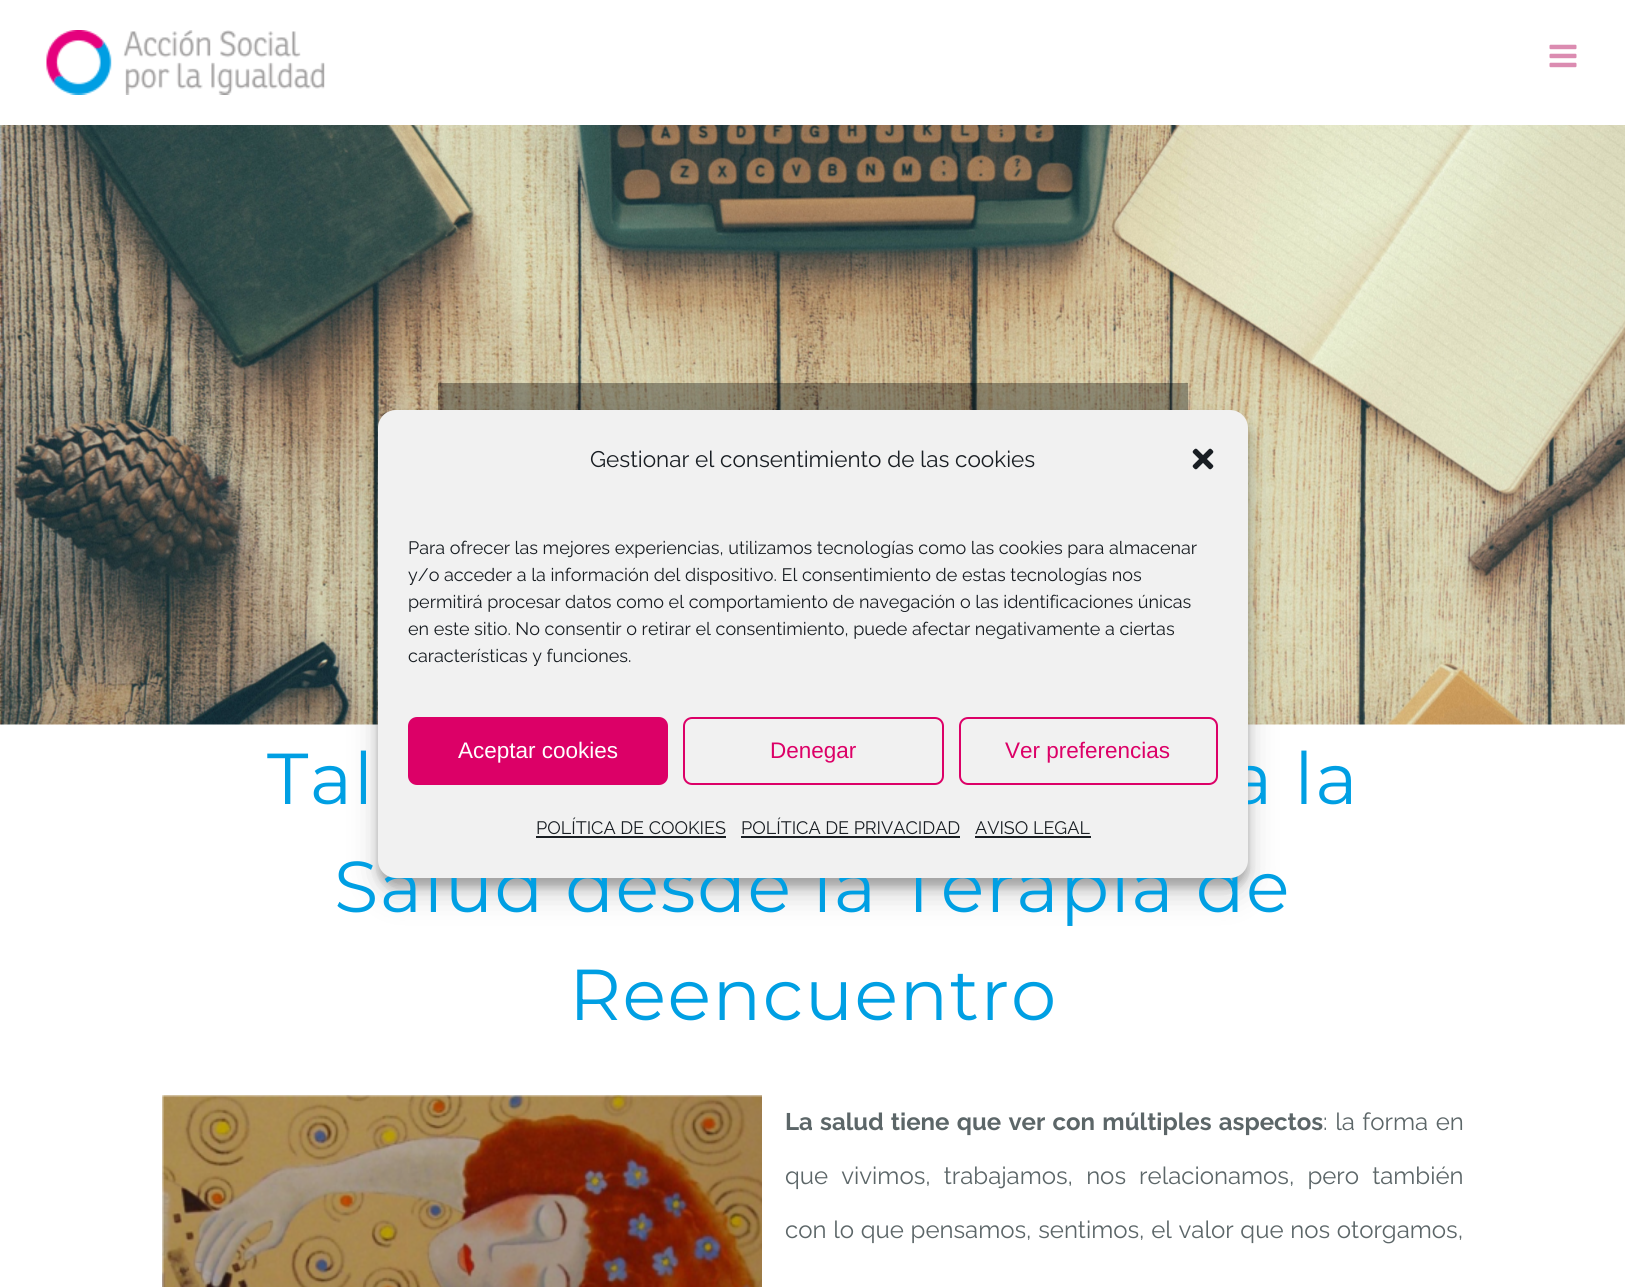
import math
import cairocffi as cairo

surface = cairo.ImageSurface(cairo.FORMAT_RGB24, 1625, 1287)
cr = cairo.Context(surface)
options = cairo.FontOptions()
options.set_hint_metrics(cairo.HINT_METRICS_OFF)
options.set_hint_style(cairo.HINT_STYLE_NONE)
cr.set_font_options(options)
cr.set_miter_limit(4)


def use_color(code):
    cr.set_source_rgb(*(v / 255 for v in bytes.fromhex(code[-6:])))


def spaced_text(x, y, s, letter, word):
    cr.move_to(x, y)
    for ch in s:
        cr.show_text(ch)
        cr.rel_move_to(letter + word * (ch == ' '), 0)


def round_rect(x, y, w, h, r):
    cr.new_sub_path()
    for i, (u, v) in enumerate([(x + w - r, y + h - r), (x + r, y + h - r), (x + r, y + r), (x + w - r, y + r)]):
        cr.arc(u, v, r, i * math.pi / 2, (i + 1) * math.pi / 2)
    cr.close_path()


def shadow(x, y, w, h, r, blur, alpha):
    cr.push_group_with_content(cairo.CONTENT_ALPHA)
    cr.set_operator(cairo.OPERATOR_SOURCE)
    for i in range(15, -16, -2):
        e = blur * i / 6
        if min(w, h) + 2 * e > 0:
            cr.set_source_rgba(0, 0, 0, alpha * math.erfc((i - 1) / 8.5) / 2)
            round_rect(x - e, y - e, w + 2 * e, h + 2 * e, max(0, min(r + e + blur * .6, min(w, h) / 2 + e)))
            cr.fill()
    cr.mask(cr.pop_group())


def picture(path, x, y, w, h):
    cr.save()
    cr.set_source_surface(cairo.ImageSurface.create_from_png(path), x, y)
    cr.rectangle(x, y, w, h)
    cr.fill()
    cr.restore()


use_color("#ffffff")
cr.paint()
picture("img4.png", 0, 125, 1625, 600)
cr.set_source_rgba(0, 0, 0, 0.35)
cr.rectangle(438, 383, 750, 27)
cr.fill()
use_color("#000000")
shadow(378, 419, 870, 468, 18, 4.5, 0.23)
shadow(378, 425, 870, 468, 18, 15, 0.19)
cr.select_font_face("Montserrat Thin")
cr.set_font_size(72)
use_color("#009fe3")
spaced_text(1230, 804, "a la", 1.5, 0)
spaced_text(334, 912, "Salud desde la Terapia de", 1.5, 0)
use_color("#f1f1f1")
round_rect(378, 410, 870, 468, 18)
cr.fill()
cr.select_font_face("Raleway")
cr.set_font_size(22.5)
use_color("#191e23")
cr.move_to(590, 467)
cr.show_text("Gestionar el consentimiento de las cookies")
picture("img1.png", 1192, 448, 22, 22)
cr.set_font_size(18)
cr.move_to(408, 554)
cr.show_text("Para ofrecer las mejores experiencias, utilizamos tecnologías como las cookies para almacenar")
cr.move_to(408, 581)
cr.show_text("y/o acceder a la información del dispositivo. El consentimiento de estas tecnologías nos")
cr.move_to(408, 608)
cr.show_text("permitirá procesar datos como el comportamiento de navegación o las identificaciones únicas")
cr.move_to(408, 635)
cr.show_text("en este sitio. No consentir o retirar el consentimiento, puede afectar negativamente a ciertas")
cr.move_to(408, 662)
cr.show_text("características y funciones.")
use_color("#dc0067")
round_rect(409, 718, 258, 66, 8)
cr.fill_preserve()
cr.stroke()
cr.select_font_face("Liberation Sans")
cr.set_font_size(22.5)
use_color("#ffffff")
cr.move_to(458, 758)
cr.show_text("Aceptar cookies")
round_rect(684, 718, 259, 66, 8)
use_color("#dc0067")
cr.stroke()
cr.move_to(770, 758)
cr.show_text("Denegar")
round_rect(960, 718, 257, 66, 8)
cr.stroke()
cr.move_to(1005, 758)
cr.show_text("Ver preferencias")
cr.select_font_face("Raleway")
cr.set_font_size(18)
use_color("#191e23")
cr.move_to(536, 834)
cr.show_text("POLÍTICA DE COOKIES")
cr.rectangle(536, 836, 190, 2)
cr.fill()
cr.move_to(741, 834)
cr.show_text("POLÍTICA DE PRIVACIDAD")
cr.rectangle(741, 836, 219, 2)
cr.fill()
cr.move_to(975, 834)
cr.show_text("AVISO LEGAL")
cr.rectangle(975, 836, 116, 2)
cr.fill()
picture("img2.png", 46, 30, 279, 65)
picture("img3.png", 1549, 44, 28, 24)
cr.select_font_face("Montserrat Thin")
cr.set_font_size(72)
use_color("#009fe3")
spaced_text(267, 804, "Tal", 1.5, 0)
spaced_text(569, 1020, "Reencuentro", 1.5, 0)
picture("img5.png", 162, 1095, 600, 192)
cr.select_font_face("Raleway", cairo.FONT_SLANT_NORMAL, cairo.FONT_WEIGHT_BOLD)
cr.set_font_size(24)
use_color("#5c6668")
spaced_text(785, 1130, "La salud tiene que ver con múltiples aspectos", 0, 1.5)
cr.select_font_face("Raleway")
spaced_text(1323, 1130, ": la forma en", 0, 1.5)
spaced_text(785, 1184, "que vivimos, trabajamos, nos relacionamos, pero también", 0, 7)
spaced_text(785, 1238, "con lo que pensamos, sentimos, el valor que nos otorgamos,", 0, 0.6)
surface.write_to_png("result.png")
